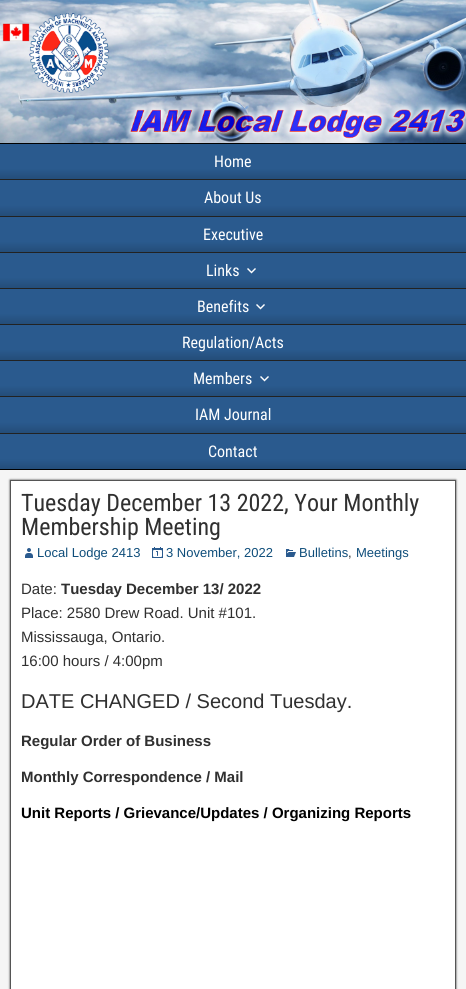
import math
import cairocffi as cairo

surface = cairo.ImageSurface(cairo.FORMAT_RGB24, 466, 989)
cr = cairo.Context(surface)
options = cairo.FontOptions()
options.set_hint_metrics(cairo.HINT_METRICS_OFF)
options.set_hint_style(cairo.HINT_STYLE_NONE)
cr.set_font_options(options)
cr.set_miter_limit(4)


def use_color(code):
    cr.set_source_rgb(*(v / 255 for v in bytes.fromhex(code[-6:])))


def round_rect(x, y, w, h, r):
    cr.new_sub_path()
    for i, (u, v) in enumerate([(x + w - r, y + h - r), (x + r, y + h - r), (x + r, y + r), (x + w - r, y + r)]):
        cr.arc(u, v, r, i * math.pi / 2, (i + 1) * math.pi / 2)
    cr.close_path()


def shadow(x, y, w, h, r, blur, alpha):
    cr.push_group_with_content(cairo.CONTENT_ALPHA)
    cr.set_operator(cairo.OPERATOR_SOURCE)
    for i in range(15, -16, -2):
        e = blur * i / 6
        if min(w, h) + 2 * e > 0:
            cr.set_source_rgba(0, 0, 0, alpha * math.erfc((i - 1) / 8.5) / 2)
            round_rect(x - e, y - e, w + 2 * e, h + 2 * e, max(0, min(r + e + blur * .6, min(w, h) / 2 + e)))
            cr.fill()
    cr.mask(cr.pop_group())


def picture(path, x, y, w, h):
    cr.save()
    cr.set_source_surface(cairo.ImageSurface.create_from_png(path), x, y)
    cr.rectangle(x, y, w, h)
    cr.fill()
    cr.restore()


use_color("#000000")
cr.paint()
picture("img1.png", 0, 0, 466, 143)
gradient = cairo.LinearGradient(233, 144, 233, 179)
gradient.add_color_stop_rgba(0.7, 0.165, 0.353, 0.557, 1)
gradient.add_color_stop_rgba(1, 0.141, 0.302, 0.475, 1)
cr.set_source(gradient)
cr.rectangle(0, 144, 466, 35)
cr.fill()
use_color("#222222")
cr.rectangle(0, 179, 466, 1)
cr.fill()
cr.select_font_face("Roboto Condensed")
cr.set_font_size(16)
use_color("#ffffff")
cr.move_to(214, 167)
cr.show_text("Home")
gradient = cairo.LinearGradient(233, 180, 233, 216)
gradient.add_color_stop_rgba(0.7, 0.165, 0.353, 0.557, 1)
gradient.add_color_stop_rgba(1, 0.141, 0.302, 0.475, 1)
cr.set_source(gradient)
cr.rectangle(0, 180, 466, 36)
cr.fill()
use_color("#222222")
cr.rectangle(0, 216, 466, 1)
cr.fill()
use_color("#ffffff")
cr.move_to(204, 203)
cr.show_text("About Us")
gradient = cairo.LinearGradient(233, 217, 233, 252)
gradient.add_color_stop_rgba(0.7, 0.165, 0.353, 0.557, 1)
gradient.add_color_stop_rgba(1, 0.141, 0.302, 0.475, 1)
cr.set_source(gradient)
cr.rectangle(0, 217, 466, 35)
cr.fill()
use_color("#222222")
cr.rectangle(0, 252, 466, 1)
cr.fill()
use_color("#ffffff")
cr.move_to(203, 240)
cr.show_text("Executive")
gradient = cairo.LinearGradient(233, 253, 233, 288)
gradient.add_color_stop_rgba(0.7, 0.165, 0.353, 0.557, 1)
gradient.add_color_stop_rgba(1, 0.141, 0.302, 0.475, 1)
cr.set_source(gradient)
cr.rectangle(0, 253, 466, 35)
cr.fill()
use_color("#222222")
cr.rectangle(0, 288, 466, 1)
cr.fill()
use_color("#ffffff")
cr.move_to(206, 276)
cr.show_text("Links")
picture("img2.png", 247, 268, 9, 6)
gradient = cairo.LinearGradient(233, 289, 233, 324)
gradient.add_color_stop_rgba(0.7, 0.165, 0.353, 0.557, 1)
gradient.add_color_stop_rgba(1, 0.141, 0.302, 0.475, 1)
cr.set_source(gradient)
cr.rectangle(0, 289, 466, 35)
cr.fill()
use_color("#222222")
cr.rectangle(0, 324, 466, 1)
cr.fill()
use_color("#ffffff")
cr.move_to(197, 312)
cr.show_text("Benefits")
picture("img2.png", 256, 304, 9, 6)
gradient = cairo.LinearGradient(233, 325, 233, 360)
gradient.add_color_stop_rgba(0.7, 0.165, 0.353, 0.557, 1)
gradient.add_color_stop_rgba(1, 0.141, 0.302, 0.475, 1)
cr.set_source(gradient)
cr.rectangle(0, 325, 466, 35)
cr.fill()
use_color("#222222")
cr.rectangle(0, 360, 466, 1)
cr.fill()
use_color("#ffffff")
cr.move_to(182, 348)
cr.show_text("Regulation/Acts")
gradient = cairo.LinearGradient(233, 361, 233, 396)
gradient.add_color_stop_rgba(0.7, 0.165, 0.353, 0.557, 1)
gradient.add_color_stop_rgba(1, 0.141, 0.302, 0.475, 1)
cr.set_source(gradient)
cr.rectangle(0, 361, 466, 35)
cr.fill()
use_color("#222222")
cr.rectangle(0, 396, 466, 1)
cr.fill()
use_color("#ffffff")
cr.move_to(193, 384)
cr.show_text("Members")
picture("img2.png", 260, 376, 9, 6)
gradient = cairo.LinearGradient(233, 397, 233, 433)
gradient.add_color_stop_rgba(0.7, 0.165, 0.353, 0.557, 1)
gradient.add_color_stop_rgba(1, 0.141, 0.302, 0.475, 1)
cr.set_source(gradient)
cr.rectangle(0, 397, 466, 36)
cr.fill()
use_color("#222222")
cr.rectangle(0, 433, 466, 1)
cr.fill()
use_color("#ffffff")
cr.move_to(195, 420)
cr.show_text("IAM Journal")
gradient = cairo.LinearGradient(233, 434, 233, 469)
gradient.add_color_stop_rgba(0.7, 0.165, 0.353, 0.557, 1)
gradient.add_color_stop_rgba(1, 0.141, 0.302, 0.475, 1)
cr.set_source(gradient)
cr.rectangle(0, 434, 466, 35)
cr.fill()
use_color("#ffffff")
cr.move_to(208, 457)
cr.show_text("Contact")
use_color("#f5f5f5")
cr.rectangle(0, 470, 466, 519)
cr.fill()
use_color("#333333")
shadow(10, 480, 446, 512, 0, 1, 1)
use_color("#ffffff")
cr.rectangle(10.5, 480.5, 445, 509)
cr.fill_preserve()
use_color("#555555")
cr.set_line_width(1)
cr.stroke()
cr.set_font_size(24)
use_color("#303030")
cr.move_to(21, 511)
cr.show_text("Tuesday December 13 2022, Your Monthly")
cr.move_to(21, 535)
cr.show_text("Membership Meeting")
picture("img3.png", 25, 548, 8, 10)
cr.select_font_face("Liberation Sans")
cr.set_font_size(13)
use_color("#0e4d7a")
cr.move_to(37, 557)
cr.show_text("Local Lodge 2413")
picture("img4.png", 152, 547, 11, 11)
cr.move_to(166, 557)
cr.show_text("3 November, 2022")
picture("img5.png", 286, 549, 10, 8)
cr.move_to(299, 557)
cr.show_text("Bulletins")
use_color("#303030")
cr.move_to(348, 557)
cr.show_text(",")
use_color("#0e4d7a")
cr.move_to(356, 557)
cr.show_text("Meetings")
cr.select_font_face("Arimo")
cr.set_font_size(15)
use_color("#303030")
cr.move_to(21, 594)
cr.show_text("Date:")
cr.select_font_face("Arimo", cairo.FONT_SLANT_NORMAL, cairo.FONT_WEIGHT_BOLD)
cr.move_to(61, 594)
cr.show_text("Tuesday December 13/ 2022")
cr.select_font_face("Arimo")
cr.move_to(21, 618)
cr.show_text("Place: 2580 Drew Road. Unit #101.")
cr.move_to(21, 642)
cr.show_text("Mississauga, Ontario.")
cr.move_to(21, 666)
cr.show_text("16:00 hours / 4:00pm")
cr.set_font_size(20)
cr.move_to(21, 708)
cr.show_text("DATE CHANGED / Second Tuesday.")
cr.select_font_face("Arimo", cairo.FONT_SLANT_NORMAL, cairo.FONT_WEIGHT_BOLD)
cr.set_font_size(15)
cr.move_to(21, 746)
cr.show_text("Regular Order of Business")
cr.move_to(21, 782)
cr.show_text("Monthly Correspondence / Mail")
use_color("#000000")
cr.move_to(21, 818)
cr.show_text("Unit Reports / Grievance/Updates / Organizing Reports")
surface.write_to_png("result.png")
